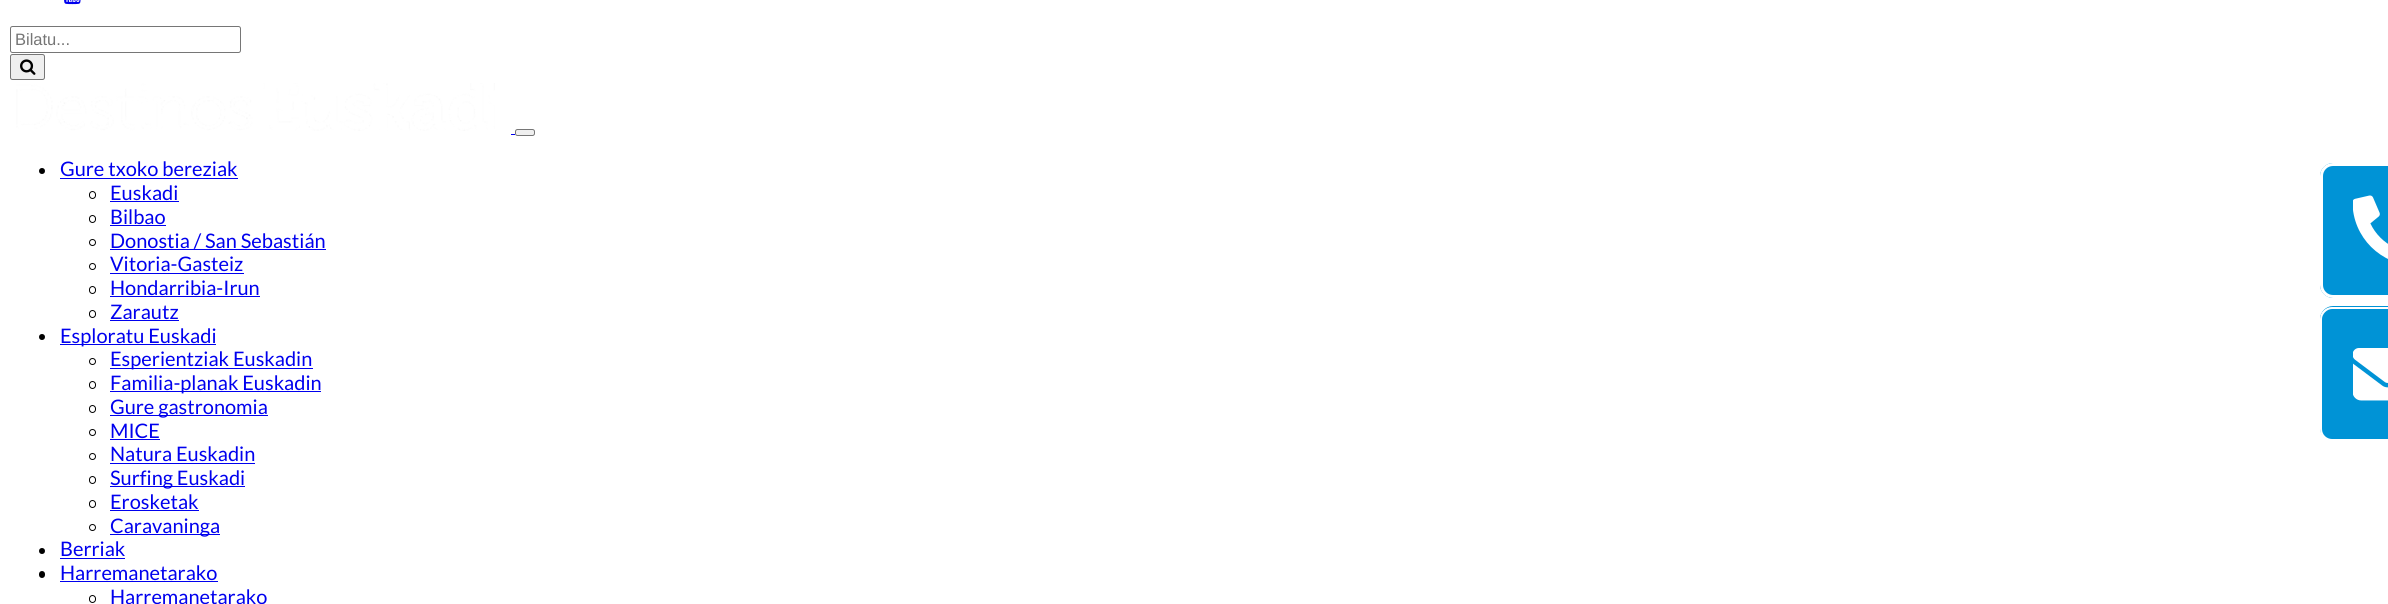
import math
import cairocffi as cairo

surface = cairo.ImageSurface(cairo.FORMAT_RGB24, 2388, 604)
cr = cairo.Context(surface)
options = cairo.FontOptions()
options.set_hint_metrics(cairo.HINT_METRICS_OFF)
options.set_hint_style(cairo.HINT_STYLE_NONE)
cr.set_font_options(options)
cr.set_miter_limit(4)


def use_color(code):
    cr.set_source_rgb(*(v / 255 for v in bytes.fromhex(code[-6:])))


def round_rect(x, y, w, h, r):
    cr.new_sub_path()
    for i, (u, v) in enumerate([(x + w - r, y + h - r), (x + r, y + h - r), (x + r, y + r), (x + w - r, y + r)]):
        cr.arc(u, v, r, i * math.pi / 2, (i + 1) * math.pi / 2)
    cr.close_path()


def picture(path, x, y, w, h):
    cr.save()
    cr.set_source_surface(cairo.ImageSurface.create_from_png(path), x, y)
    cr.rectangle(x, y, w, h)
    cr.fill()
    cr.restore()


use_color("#ffffff")
cr.paint()
picture("img1.png", 64, 0, 17, 5)
round_rect(10.5, 26.5, 230, 26, 2)
use_color("#767676")
cr.set_line_width(1)
cr.stroke()
cr.select_font_face("Liberation Sans")
cr.set_font_size(16.5)
use_color("#757575")
cr.move_to(15, 45)
cr.show_text("Bilatu...")
use_color("#efefef")
round_rect(10.5, 54.5, 34, 25, 2)
cr.fill_preserve()
use_color("#767676")
cr.stroke()
picture("img2.png", 20, 59, 16, 16)
picture("img3.png", 16, 83, 479, 48)
use_color("#0000ee")
cr.rectangle(511, 134, 4, 1)
cr.fill()
use_color("#efefef")
round_rect(515.5, 129.5, 19, 6, 2)
cr.fill_preserve()
use_color("#767676")
cr.stroke()
use_color("#000000")
cr.arc(42, 171, 3, 0, 2 * math.pi)
cr.fill()
cr.select_font_face("Lato")
cr.set_font_size(20)
use_color("#0000ee")
cr.move_to(60, 176)
cr.show_text("Gure txoko bereziak")
cr.rectangle(60, 178, 178, 1)
cr.fill()
round_rect(89.5, 191.5, 6, 7, 3)
use_color("#000000")
cr.stroke()
use_color("#0000ee")
cr.move_to(110, 200)
cr.show_text("Euskadi")
cr.rectangle(110, 201, 69, 1)
cr.fill()
round_rect(89.5, 215.5, 6, 7, 3)
use_color("#000000")
cr.stroke()
use_color("#0000ee")
cr.move_to(110, 224)
cr.show_text("Bilbao")
cr.rectangle(110, 225, 56, 1)
cr.fill()
cr.arc(92.5, 242.5, 3, 0, 2 * math.pi)
use_color("#000000")
cr.stroke()
use_color("#0000ee")
cr.move_to(110, 248)
cr.show_text("Donostia / San Sebastián")
cr.rectangle(110, 249, 216, 1)
cr.fill()
cr.arc(92.5, 266.5, 3, 0, 2 * math.pi)
use_color("#000000")
cr.stroke()
use_color("#0000ee")
cr.move_to(110, 271)
cr.show_text("Vitoria-Gasteiz")
cr.rectangle(110, 273, 134, 1)
cr.fill()
round_rect(89.5, 286.5, 6, 7, 3)
use_color("#000000")
cr.stroke()
use_color("#0000ee")
cr.move_to(110, 295)
cr.show_text("Hondarribia-Irun")
cr.rectangle(110, 296, 150, 1)
cr.fill()
round_rect(89.5, 310.5, 6, 7, 3)
use_color("#000000")
cr.stroke()
use_color("#0000ee")
cr.move_to(110, 319)
cr.show_text("Zarautz")
cr.rectangle(110, 320, 69, 1)
cr.fill()
use_color("#000000")
cr.arc(42, 337, 3, 0, 2 * math.pi)
cr.fill()
use_color("#0000ee")
cr.rectangle(60, 344, 156, 1)
cr.fill()
cr.move_to(60, 343)
cr.show_text("Esploratu Euskadi")
cr.new_path()
cr.arc(92.5, 361.5, 3, 0, 2 * math.pi)
use_color("#000000")
cr.stroke()
use_color("#0000ee")
cr.rectangle(110, 368, 203, 1)
cr.fill()
cr.move_to(110, 366)
cr.show_text("Esperientziak Euskadin")
round_rect(89.5, 381.5, 6, 7, 3)
use_color("#000000")
cr.stroke()
use_color("#0000ee")
cr.rectangle(110, 391, 211, 1)
cr.fill()
cr.move_to(110, 390)
cr.show_text("Familia-planak Euskadin")
round_rect(89.5, 405.5, 6, 7, 3)
use_color("#000000")
cr.stroke()
use_color("#0000ee")
cr.rectangle(110, 415, 158, 1)
cr.fill()
cr.move_to(110, 414)
cr.show_text("Gure gastronomia")
cr.new_path()
cr.arc(92.5, 432.5, 3, 0, 2 * math.pi)
use_color("#000000")
cr.stroke()
use_color("#0000ee")
cr.move_to(110, 438)
cr.show_text("MICE")
cr.rectangle(110, 439, 50, 1)
cr.fill()
cr.arc(92.5, 456.5, 3, 0, 2 * math.pi)
use_color("#000000")
cr.stroke()
use_color("#0000ee")
cr.move_to(110, 461)
cr.show_text("Natura Euskadin")
cr.rectangle(110, 463, 145, 1)
cr.fill()
round_rect(89.5, 476.5, 6, 7, 3)
use_color("#000000")
cr.stroke()
use_color("#0000ee")
cr.rectangle(110, 486, 135, 1)
cr.fill()
cr.move_to(110, 485)
cr.show_text("Surfing Euskadi")
round_rect(89.5, 500.5, 6, 7, 3)
use_color("#000000")
cr.stroke()
use_color("#0000ee")
cr.move_to(110, 509)
cr.show_text("Erosketak")
cr.rectangle(110, 510, 89, 1)
cr.fill()
cr.arc(92.5, 527.5, 3, 0, 2 * math.pi)
use_color("#000000")
cr.stroke()
use_color("#0000ee")
cr.rectangle(110, 534, 110, 1)
cr.fill()
cr.move_to(110, 533)
cr.show_text("Caravaninga")
use_color("#000000")
cr.new_path()
cr.arc(42, 551, 3, 0, 2 * math.pi)
cr.fill()
use_color("#0000ee")
cr.move_to(60, 556)
cr.show_text("Berriak")
cr.rectangle(60, 558, 65, 1)
cr.fill()
use_color("#000000")
round_rect(39, 571, 6, 7, 3)
cr.fill()
use_color("#0000ee")
cr.move_to(60, 580)
cr.show_text("Harremanetarako")
cr.rectangle(60, 581, 158, 1)
cr.fill()
round_rect(89.5, 595.5, 6, 7, 3)
use_color("#000000")
cr.stroke()
use_color("#0000ee")
cr.move_to(110, 604)
cr.show_text("Harremanetarako")
use_color("#0093d6")
cr.new_path()
cr.move_to(2333, 163)
cr.line_to(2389, 163)
cr.line_to(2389, 298)
cr.line_to(2333, 298)
cr.curve_to(2326, 298, 2320, 292, 2320, 285)
cr.line_to(2320, 176)
cr.curve_to(2320, 169, 2326, 163, 2333, 163)
cr.close_path()
cr.fill()
round_rect(2321.5, 164.5, 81, 132, 11.5)
use_color("#ffffff")
cr.set_line_width(3)
cr.stroke()
picture("img4.png", 2353, 195, 35, 64)
use_color("#0093d6")
cr.new_path()
cr.move_to(2333, 306)
cr.line_to(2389, 306)
cr.line_to(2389, 441)
cr.line_to(2333, 441)
cr.curve_to(2326, 441, 2320, 435, 2320, 428)
cr.line_to(2320, 319)
cr.curve_to(2320, 312, 2326, 306, 2333, 306)
cr.close_path()
cr.fill()
use_color("#ffffff")
cr.set_fill_rule(cairo.FILL_RULE_EVEN_ODD)
cr.new_path()
cr.move_to(2332, 307)
cr.line_to(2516, 307)
cr.curve_to(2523, 307, 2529, 312, 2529, 319)
cr.line_to(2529, 429)
cr.curve_to(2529, 436, 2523, 442, 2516, 442)
cr.line_to(2332, 442)
cr.curve_to(2326, 442, 2320, 436, 2320, 429)
cr.line_to(2320, 319)
cr.curve_to(2320, 312, 2326, 307, 2332, 307)
cr.close_path()
cr.move_to(2332, 309)
cr.line_to(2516, 309)
cr.curve_to(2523, 309, 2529, 314, 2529, 319)
cr.line_to(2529, 429)
cr.curve_to(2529, 435, 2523, 439, 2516, 439)
cr.line_to(2332, 439)
cr.curve_to(2327, 439, 2322, 435, 2322, 429)
cr.line_to(2322, 319)
cr.curve_to(2322, 314, 2327, 309, 2332, 309)
cr.close_path()
cr.fill()
picture("img5.png", 2353, 348, 35, 53)
surface.write_to_png("result.png")
